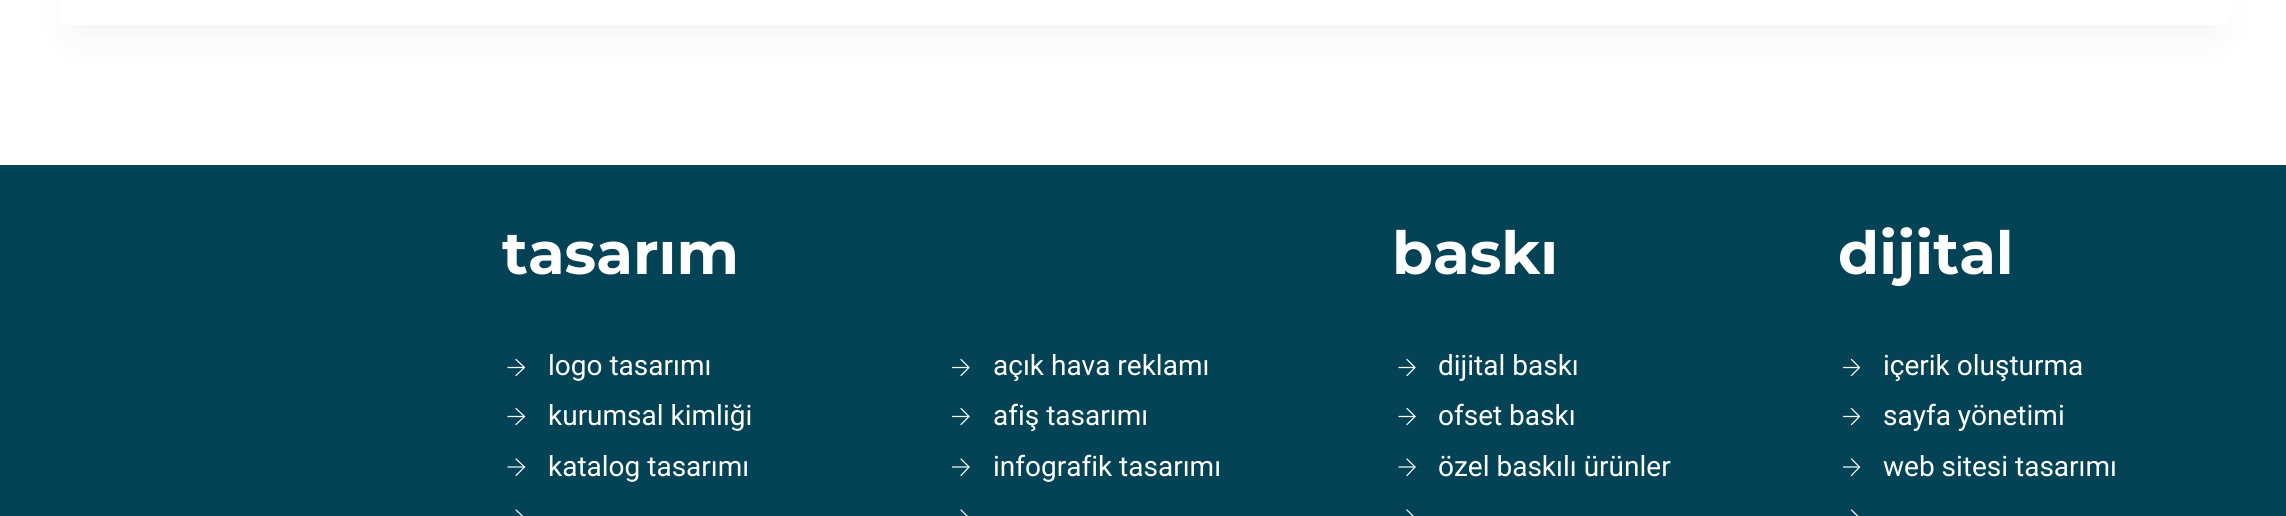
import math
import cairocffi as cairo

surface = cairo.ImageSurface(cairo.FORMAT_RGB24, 2286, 516)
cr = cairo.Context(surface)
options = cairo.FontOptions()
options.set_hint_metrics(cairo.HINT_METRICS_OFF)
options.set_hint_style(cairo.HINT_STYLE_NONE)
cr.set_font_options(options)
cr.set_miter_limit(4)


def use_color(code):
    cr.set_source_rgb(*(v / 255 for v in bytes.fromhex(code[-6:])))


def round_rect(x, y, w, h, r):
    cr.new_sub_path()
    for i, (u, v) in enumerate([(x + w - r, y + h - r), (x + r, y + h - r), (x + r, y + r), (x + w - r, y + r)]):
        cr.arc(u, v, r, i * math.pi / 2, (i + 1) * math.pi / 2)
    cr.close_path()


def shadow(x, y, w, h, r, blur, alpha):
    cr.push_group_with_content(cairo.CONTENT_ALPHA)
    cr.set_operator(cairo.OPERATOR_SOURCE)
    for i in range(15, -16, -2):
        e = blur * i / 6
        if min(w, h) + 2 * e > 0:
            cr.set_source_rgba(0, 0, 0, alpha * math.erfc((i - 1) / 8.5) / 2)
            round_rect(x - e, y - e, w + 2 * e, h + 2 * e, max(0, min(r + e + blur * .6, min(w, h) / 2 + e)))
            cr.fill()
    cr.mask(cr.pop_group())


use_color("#ffffff")
cr.paint()
use_color("#000000")
shadow(75, -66, 2139, 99, 0, 22, 0.05)
use_color("#ffffff")
round_rect(58, -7, 2173, 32, 7)
cr.fill()
use_color("#044355")
cr.rectangle(0, 165, 2286, 351)
cr.fill()
cr.select_font_face("Montserrat", cairo.FONT_SLANT_NORMAL, cairo.FONT_WEIGHT_BOLD)
cr.set_font_size(59.5)
use_color("#ffffff")
cr.move_to(502, 274)
cr.show_text("tasarım")
cr.new_path()
cr.move_to(508, 367.5)
cr.line_to(524.5, 367.5)
cr.move_to(516, 359.5)
cr.line_to(524.5, 367.5)
cr.line_to(516, 375.5)
cr.move_to(508, 416.5)
cr.line_to(524.5, 416.5)
cr.set_line_width(1.2)
cr.set_line_cap(cairo.LINE_CAP_ROUND)
cr.set_line_join(cairo.LINE_JOIN_ROUND)
cr.stroke()
cr.select_font_face("Roboto")
cr.set_font_size(28)
cr.move_to(548, 375)
cr.show_text("logo tasarımı")
cr.new_path()
cr.move_to(516, 408.5)
cr.line_to(524.5, 416.5)
cr.line_to(516, 424.5)
cr.move_to(508, 467)
cr.line_to(524.5, 467)
cr.stroke()
cr.move_to(548, 425)
cr.show_text("kurumsal kimliği")
cr.new_path()
cr.move_to(516, 459)
cr.line_to(524.5, 467)
cr.line_to(516, 475.5)
cr.move_to(516, 510)
cr.line_to(524.5, 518)
cr.line_to(516, 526)
cr.stroke()
cr.move_to(548, 476)
cr.show_text("katalog tasarımı")
cr.new_path()
cr.move_to(952.5, 367.5)
cr.line_to(969, 367.5)
cr.move_to(961, 359.5)
cr.line_to(969, 367.5)
cr.line_to(961, 375.5)
cr.move_to(952.5, 416.5)
cr.line_to(969, 416.5)
cr.stroke()
cr.move_to(993, 375)
cr.show_text("açık hava reklamı")
cr.new_path()
cr.move_to(961, 408.5)
cr.line_to(969, 416.5)
cr.line_to(961, 424.5)
cr.move_to(952.5, 467)
cr.line_to(969, 467)
cr.stroke()
cr.move_to(993, 425)
cr.show_text("afiş tasarımı")
cr.new_path()
cr.move_to(961, 459)
cr.line_to(969, 467)
cr.line_to(961, 475.5)
cr.move_to(961, 510)
cr.line_to(969, 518)
cr.line_to(961, 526)
cr.stroke()
cr.move_to(993, 476)
cr.show_text("infografik tasarımı")
cr.select_font_face("Montserrat", cairo.FONT_SLANT_NORMAL, cairo.FONT_WEIGHT_BOLD)
cr.set_font_size(59.5)
cr.move_to(1392, 274)
cr.show_text("baskı")
cr.new_path()
cr.move_to(1399, 367.5)
cr.line_to(1415, 367.5)
cr.move_to(1407, 359.5)
cr.line_to(1415, 367.5)
cr.line_to(1407, 375.5)
cr.move_to(1399, 416.5)
cr.line_to(1415, 416.5)
cr.stroke()
cr.select_font_face("Roboto")
cr.set_font_size(28)
cr.move_to(1438, 375)
cr.show_text("dijital baskı")
cr.new_path()
cr.move_to(1407, 408.5)
cr.line_to(1415, 416.5)
cr.line_to(1407, 424.5)
cr.move_to(1399, 467)
cr.line_to(1415, 467)
cr.stroke()
cr.move_to(1438, 425)
cr.show_text("ofset baskı")
cr.new_path()
cr.move_to(1407, 459)
cr.line_to(1415, 467)
cr.line_to(1407, 475.5)
cr.move_to(1407, 510)
cr.line_to(1415, 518)
cr.line_to(1407, 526)
cr.stroke()
cr.move_to(1438, 476)
cr.show_text("özel baskılı ürünler")
cr.select_font_face("Montserrat", cairo.FONT_SLANT_NORMAL, cairo.FONT_WEIGHT_BOLD)
cr.set_font_size(59.5)
cr.move_to(1838, 274)
cr.show_text("dijital")
cr.new_path()
cr.move_to(1843.5, 367.5)
cr.line_to(1859.5, 367.5)
cr.move_to(1851.5, 359.5)
cr.line_to(1859.5, 367.5)
cr.line_to(1851.5, 375.5)
cr.move_to(1843.5, 416.5)
cr.line_to(1859.5, 416.5)
cr.stroke()
cr.select_font_face("Roboto")
cr.set_font_size(28)
cr.move_to(1883, 375)
cr.show_text("içerik oluşturma")
cr.new_path()
cr.move_to(1851.5, 408.5)
cr.line_to(1859.5, 416.5)
cr.line_to(1851.5, 424.5)
cr.move_to(1843.5, 467)
cr.line_to(1859.5, 467)
cr.stroke()
cr.move_to(1883, 425)
cr.show_text("sayfa yönetimi")
cr.new_path()
cr.move_to(1851.5, 459)
cr.line_to(1859.5, 467)
cr.line_to(1851.5, 475.5)
cr.move_to(1851.5, 510)
cr.line_to(1859.5, 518)
cr.line_to(1851.5, 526)
cr.stroke()
cr.move_to(1883, 476)
cr.show_text("web sitesi tasarımı")
surface.write_to_png("result.png")
